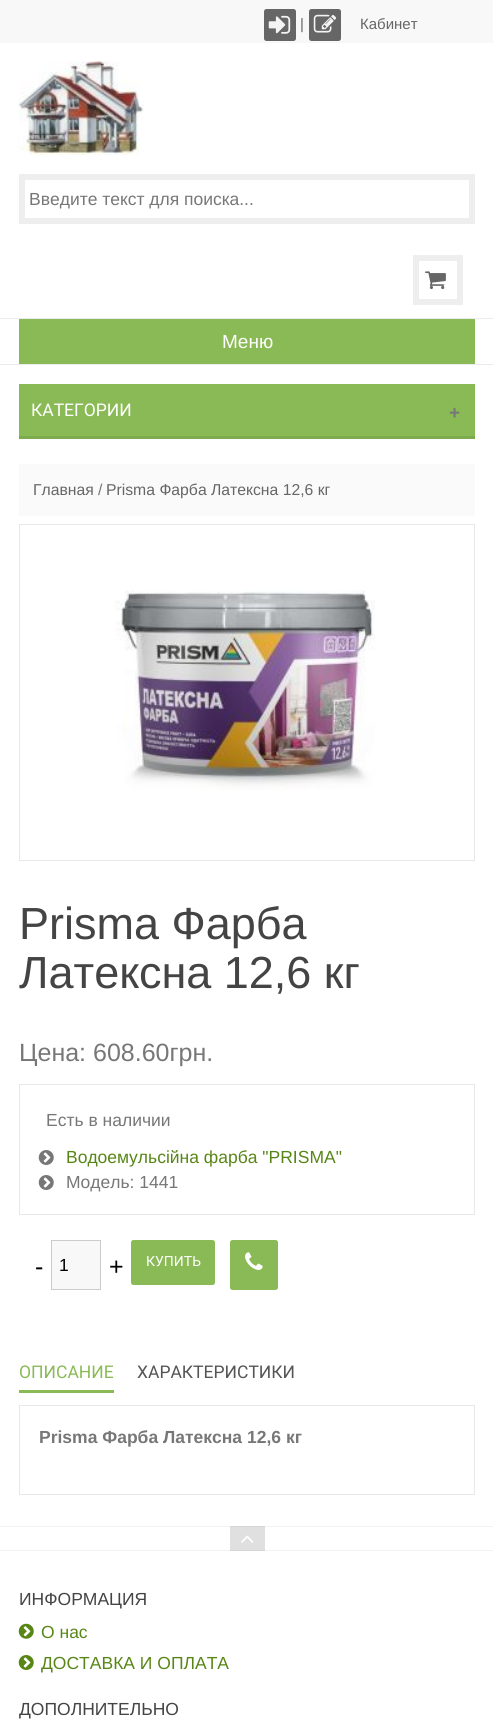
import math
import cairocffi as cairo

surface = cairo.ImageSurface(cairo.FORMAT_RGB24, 493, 1725)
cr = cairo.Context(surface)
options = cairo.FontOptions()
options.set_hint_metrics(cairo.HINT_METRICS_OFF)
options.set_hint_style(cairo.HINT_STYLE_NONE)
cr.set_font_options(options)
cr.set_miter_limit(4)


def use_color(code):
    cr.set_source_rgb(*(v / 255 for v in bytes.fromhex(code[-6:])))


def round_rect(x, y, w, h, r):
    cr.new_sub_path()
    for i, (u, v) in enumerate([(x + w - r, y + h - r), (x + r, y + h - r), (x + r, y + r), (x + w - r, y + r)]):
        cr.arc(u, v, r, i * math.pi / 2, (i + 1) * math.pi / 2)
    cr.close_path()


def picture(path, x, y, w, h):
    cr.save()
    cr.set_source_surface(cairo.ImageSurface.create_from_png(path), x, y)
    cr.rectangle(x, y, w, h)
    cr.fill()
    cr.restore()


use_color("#ffffff")
cr.paint()
use_color("#e0e0e0")
cr.rectangle(230, 1527, 35, 23)
cr.fill()
use_color("#f8f8f8")
cr.rectangle(0, 0, 493, 43)
cr.fill()
use_color("#666666")
round_rect(264, 9, 32, 32, 2.5)
cr.fill()
picture("img1.png", 268, 15, 23, 19)
cr.select_font_face("Liberation Sans")
cr.set_font_size(15)
cr.move_to(300, 29)
cr.show_text("|")
round_rect(309, 9, 32, 32, 2.5)
cr.fill()
picture("img2.png", 313, 14, 24, 19)
cr.move_to(360, 29)
cr.show_text("Кабинет")
picture("img3.png", 18, 61, 126, 94)
cr.rectangle(22, 177, 450, 44)
use_color("#eeeeee")
cr.set_line_width(6)
cr.stroke()
cr.set_font_size(17.5)
use_color("#777777")
cr.move_to(29, 205)
cr.show_text("Введите текст для поиска...")
cr.rectangle(416, 258, 44, 44)
use_color("#eeeeee")
cr.stroke()
picture("img4.png", 425, 271, 21, 19)
use_color("#ebebeb")
cr.rectangle(0, 318, 493, 1)
cr.fill()
cr.rectangle(0, 364, 493, 1)
cr.fill()
use_color("#8aba56")
cr.rectangle(19, 319, 456, 45)
cr.fill()
cr.set_font_size(19)
use_color("#ffffff")
cr.move_to(222, 348)
cr.show_text("Меню")
use_color("#8aba56")
cr.rectangle(19, 384, 456, 52)
cr.fill()
use_color("#7fab4f")
cr.rectangle(19, 436, 456, 3)
cr.fill()
cr.select_font_face("Roboto")
cr.set_font_size(17.5)
use_color("#ffffff")
cr.move_to(31, 416)
cr.show_text("КАТЕГОРИИ")
cr.select_font_face("Liberation Sans", cairo.FONT_SLANT_NORMAL, cairo.FONT_WEIGHT_BOLD)
cr.set_font_size(19)
use_color("#777777")
cr.move_to(449, 419)
cr.show_text("+")
use_color("#fafafa")
cr.rectangle(19, 464, 456, 52)
cr.fill()
cr.select_font_face("Liberation Sans")
cr.set_font_size(15.75)
use_color("#666666")
cr.move_to(33, 495)
cr.show_text("Главная")
use_color("#777777")
cr.move_to(98, 495)
cr.show_text("/")
use_color("#666666")
cr.move_to(106, 495)
cr.show_text("Prisma Фарба Латексна 12,6 кг")
cr.rectangle(19.5, 524.5, 455, 336)
use_color("#e8e8e8")
cr.set_line_width(1)
cr.stroke()
picture("img5.png", 115, 590, 260, 200)
cr.set_font_size(45)
use_color("#444444")
cr.move_to(19, 939)
cr.show_text("Prisma Фарба")
cr.move_to(19, 988)
cr.show_text("Латексна 12,6 кг")
cr.set_font_size(25)
use_color("#777777")
cr.move_to(19, 1061)
cr.show_text("Цена: 608.60грн.")
cr.rectangle(19.5, 1084.5, 455, 130)
use_color("#e8e8e8")
cr.stroke()
cr.set_font_size(17.5)
use_color("#777777")
cr.move_to(46, 1126)
cr.show_text("Есть в наличии")
picture("img6.png", 38, 1150, 16, 15)
use_color("#588616")
cr.move_to(66, 1163)
cr.show_text("Водоемульсійна фарба \"PRISMA\"")
picture("img6.png", 38, 1175, 16, 15)
use_color("#777777")
cr.move_to(66, 1188)
cr.show_text("Модель: 1441")
cr.set_font_size(25)
use_color("#000000")
cr.move_to(35, 1275)
cr.show_text("-")
use_color("#f8f8f8")
cr.rectangle(51.5, 1240.5, 49, 49)
cr.fill_preserve()
use_color("#cccccc")
cr.stroke()
cr.set_font_size(17.5)
use_color("#000000")
cr.move_to(59, 1271)
cr.show_text("1")
cr.set_font_size(25)
cr.move_to(109, 1275)
cr.show_text("+")
use_color("#8aba56")
round_rect(131, 1240, 84, 45, 2.5)
cr.fill()
cr.select_font_face("Roboto")
cr.set_font_size(14)
use_color("#ffffff")
cr.move_to(146, 1266)
cr.show_text("КУПИТЬ")
use_color("#8aba56")
round_rect(230, 1240, 48, 50, 2.5)
cr.fill()
picture("img7.png", 245, 1252, 18, 18)
cr.rectangle(19, 1390, 95, 3)
cr.fill()
cr.set_font_size(17.5)
cr.move_to(19, 1378)
cr.show_text("ОПИСАНИЕ")
use_color("#555555")
cr.move_to(137, 1378)
cr.show_text("ХАРАКТЕРИСТИКИ")
cr.rectangle(19.5, 1405.5, 455, 89)
use_color("#e8e8e8")
cr.stroke()
cr.select_font_face("Liberation Sans", cairo.FONT_SLANT_NORMAL, cairo.FONT_WEIGHT_BOLD)
use_color("#777777")
cr.move_to(39, 1443)
cr.show_text("Prisma Фарба Латексна 12,6 кг")
use_color("#f2f2f2")
cr.rectangle(0, 1526, 493, 1)
cr.fill()
use_color("#d5d5d5")
cr.rectangle(230, 1526, 35, 1)
cr.fill()
use_color("#f2f2f2")
cr.rectangle(0, 1550, 493, 1)
cr.fill()
use_color("#d5d5d5")
cr.rectangle(230, 1550, 35, 1)
cr.fill()
picture("img8.png", 241, 1535, 13, 8)
cr.select_font_face("Liberation Sans")
use_color("#444444")
cr.move_to(19, 1605)
cr.show_text("ИНФОРМАЦИЯ")
picture("img9.png", 18, 1623, 16, 16)
use_color("#588616")
cr.move_to(41, 1638)
cr.show_text("О нас")
picture("img10.png", 18, 1655, 16, 15)
cr.move_to(41, 1669)
cr.show_text("ДОСТАВКА И ОПЛАТА")
use_color("#444444")
cr.move_to(19, 1715)
cr.show_text("ДОПОЛНИТЕЛЬНО")
surface.write_to_png("result.png")
